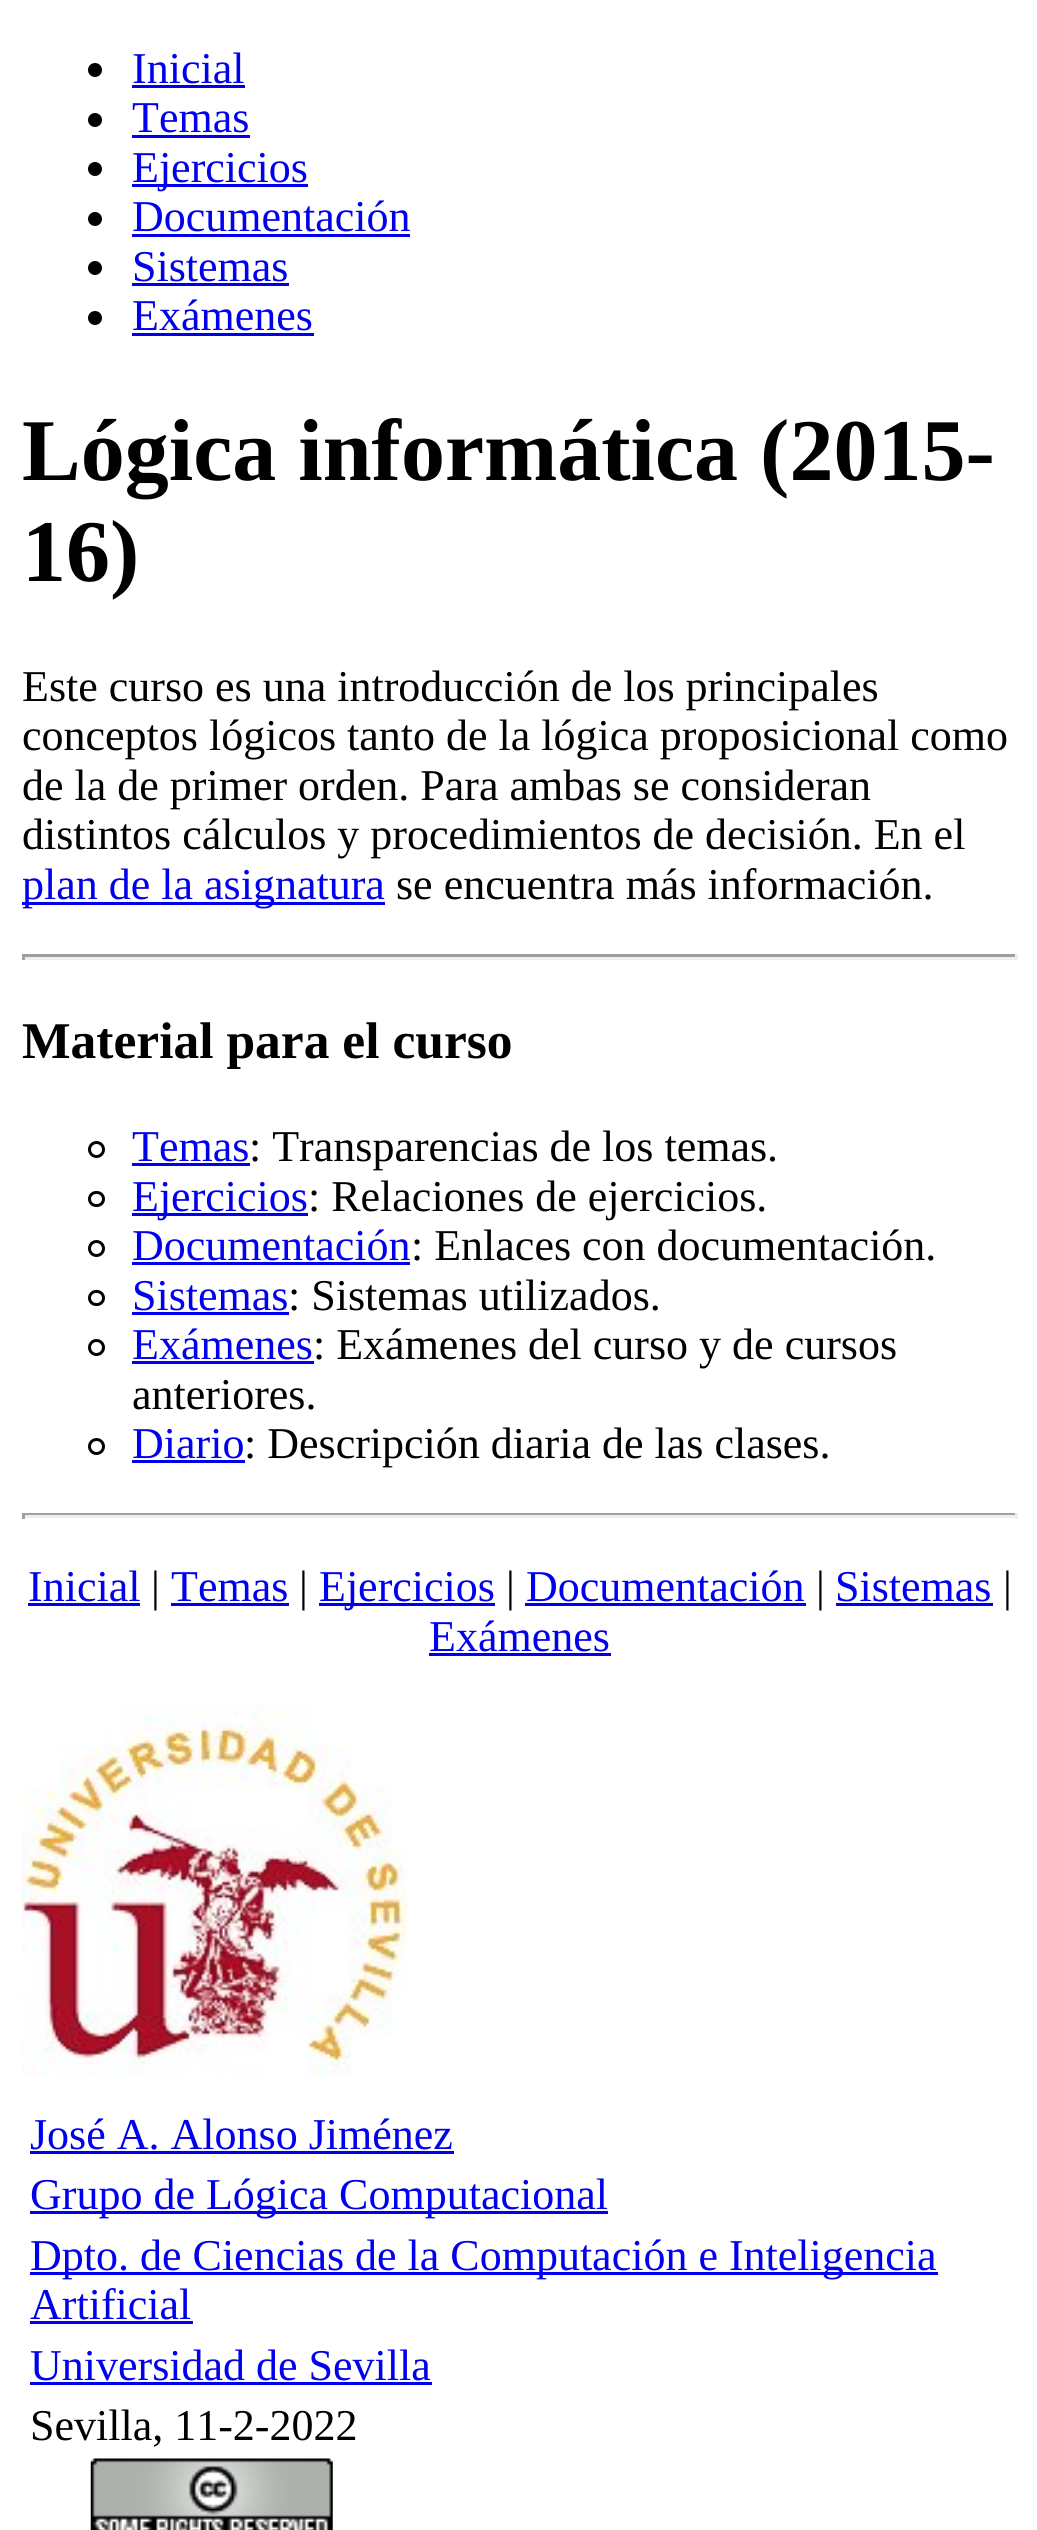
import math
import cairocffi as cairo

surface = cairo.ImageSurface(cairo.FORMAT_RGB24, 1037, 2530)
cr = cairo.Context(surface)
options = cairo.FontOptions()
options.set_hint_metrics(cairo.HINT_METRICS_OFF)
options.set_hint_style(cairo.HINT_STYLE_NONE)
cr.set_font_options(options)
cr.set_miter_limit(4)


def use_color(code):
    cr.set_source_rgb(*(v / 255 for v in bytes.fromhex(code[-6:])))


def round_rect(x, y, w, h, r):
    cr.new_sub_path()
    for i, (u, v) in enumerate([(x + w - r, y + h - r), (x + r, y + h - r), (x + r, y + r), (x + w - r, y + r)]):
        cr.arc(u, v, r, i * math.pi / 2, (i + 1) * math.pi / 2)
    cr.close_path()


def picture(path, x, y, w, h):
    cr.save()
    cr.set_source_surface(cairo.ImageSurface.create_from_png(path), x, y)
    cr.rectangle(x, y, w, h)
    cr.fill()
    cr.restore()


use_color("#ffffff")
cr.paint()
use_color("#000000")
cr.arc(95, 70, 7, 0, 2 * math.pi)
cr.fill()
cr.select_font_face("Liberation Serif")
cr.set_font_size(44)
use_color("#0000ee")
cr.move_to(132, 83)
cr.show_text("Inicial")
cr.rectangle(132, 85, 113, 3)
cr.fill()
use_color("#000000")
cr.arc(95, 120, 7, 0, 2 * math.pi)
cr.fill()
use_color("#0000ee")
cr.move_to(132, 132)
cr.show_text("Temas")
cr.rectangle(132, 135, 118, 3)
cr.fill()
use_color("#000000")
cr.arc(95, 169, 7, 0, 2 * math.pi)
cr.fill()
use_color("#0000ee")
cr.rectangle(132, 184, 176, 3)
cr.fill()
cr.move_to(132, 182)
cr.show_text("Ejercicios")
use_color("#000000")
cr.new_path()
cr.arc(95, 219, 7, 0, 2 * math.pi)
cr.fill()
use_color("#0000ee")
cr.move_to(132, 231)
cr.show_text("Documentación")
cr.rectangle(132, 234, 278, 3)
cr.fill()
use_color("#000000")
cr.arc(95, 268, 7, 0, 2 * math.pi)
cr.fill()
use_color("#0000ee")
cr.move_to(132, 281)
cr.show_text("Sistemas")
cr.rectangle(132, 283, 157, 3)
cr.fill()
use_color("#000000")
cr.arc(95, 318, 7, 0, 2 * math.pi)
cr.fill()
use_color("#0000ee")
cr.move_to(132, 330)
cr.show_text("Exámenes")
cr.rectangle(132, 333, 182, 3)
cr.fill()
cr.select_font_face("Liberation Serif", cairo.FONT_SLANT_NORMAL, cairo.FONT_WEIGHT_BOLD)
cr.set_font_size(88)
use_color("#000000")
cr.move_to(22, 480)
cr.show_text("Lógica informática (2015-")
cr.move_to(22, 581)
cr.show_text("16)")
cr.select_font_face("Liberation Serif")
cr.set_font_size(44)
cr.move_to(22, 701)
cr.show_text("Este curso es una introducción de los principales")
cr.move_to(22, 750)
cr.show_text("conceptos lógicos tanto de la lógica proposicional como")
cr.move_to(22, 800)
cr.show_text("de la de primer orden. Para ambas se consideran")
cr.move_to(22, 849)
cr.show_text("distintos cálculos y procedimientos de decisión. En el")
use_color("#0000ee")
cr.rectangle(22, 902, 363, 3)
cr.fill()
cr.move_to(22, 899)
cr.show_text("plan de la asignatura")
use_color("#000000")
cr.move_to(396, 899)
cr.show_text("se encuentra más información.")
use_color("#9f9f9f")
cr.rectangle(22, 954, 996, 3)
cr.fill()
use_color("#eeeeee")
cr.rectangle(1015, 954, 3, 6)
cr.fill()
cr.rectangle(22, 957, 996, 3)
cr.fill()
use_color("#9f9f9f")
cr.rectangle(22, 954, 3, 6)
cr.fill()
cr.select_font_face("Liberation Serif", cairo.FONT_SLANT_NORMAL, cairo.FONT_WEIGHT_BOLD)
cr.set_font_size(51.5)
use_color("#000000")
cr.move_to(22, 1058)
cr.show_text("Material para el curso")
cr.new_path()
cr.arc(96.5, 1149.5, 7, 0, 2 * math.pi)
cr.set_line_width(3)
cr.stroke()
cr.select_font_face("Liberation Serif")
cr.set_font_size(44)
use_color("#0000ee")
cr.move_to(132, 1161)
cr.show_text("Temas")
cr.rectangle(132, 1163, 118, 3)
cr.fill()
use_color("#000000")
cr.move_to(249, 1161)
cr.show_text(": Transparencias de los temas.")
round_rect(89.5, 1192.5, 14, 13, 6.5)
cr.stroke()
use_color("#0000ee")
cr.rectangle(132, 1213, 176, 3)
cr.fill()
cr.move_to(132, 1211)
cr.show_text("Ejercicios")
use_color("#000000")
cr.move_to(308, 1211)
cr.show_text(": Relaciones de ejercicios.")
cr.new_path()
cr.arc(96.5, 1248.5, 7, 0, 2 * math.pi)
cr.stroke()
use_color("#0000ee")
cr.move_to(132, 1260)
cr.show_text("Documentación")
cr.rectangle(132, 1262, 278, 3)
cr.fill()
use_color("#000000")
cr.move_to(411, 1260)
cr.show_text(": Enlaces con documentación.")
round_rect(89.5, 1291.5, 14, 13, 6.5)
cr.stroke()
use_color("#0000ee")
cr.move_to(132, 1310)
cr.show_text("Sistemas")
cr.rectangle(132, 1312, 157, 3)
cr.fill()
use_color("#000000")
cr.move_to(288, 1310)
cr.show_text(": Sistemas utilizados.")
cr.new_path()
cr.arc(96.5, 1347.5, 7, 0, 2 * math.pi)
cr.stroke()
use_color("#0000ee")
cr.move_to(132, 1359)
cr.show_text("Exámenes")
cr.rectangle(132, 1361, 182, 3)
cr.fill()
use_color("#000000")
cr.move_to(313, 1359)
cr.show_text(": Exámenes del curso y de cursos")
cr.move_to(132, 1409)
cr.show_text("anteriores.")
cr.new_path()
cr.arc(96.5, 1446.5, 7, 0, 2 * math.pi)
cr.stroke()
use_color("#0000ee")
cr.move_to(132, 1458)
cr.show_text("Diario")
cr.rectangle(132, 1460, 113, 3)
cr.fill()
use_color("#000000")
cr.move_to(244, 1458)
cr.show_text(": Descripción diaria de las clases.")
use_color("#9f9f9f")
cr.rectangle(22, 1513, 996, 2)
cr.fill()
use_color("#eeeeee")
cr.rectangle(1015, 1513, 3, 6)
cr.fill()
cr.rectangle(22, 1515, 996, 3)
cr.fill()
use_color("#9f9f9f")
cr.rectangle(22, 1513, 3, 6)
cr.fill()
use_color("#0000ee")
cr.move_to(28, 1601)
cr.show_text("Inicial")
cr.rectangle(28, 1603, 112, 3)
cr.fill()
use_color("#000000")
cr.move_to(151, 1601)
cr.show_text("|")
use_color("#0000ee")
cr.move_to(171, 1601)
cr.show_text("Temas")
cr.rectangle(171, 1603, 118, 3)
cr.fill()
use_color("#000000")
cr.move_to(299, 1601)
cr.show_text("|")
use_color("#0000ee")
cr.rectangle(319, 1603, 176, 3)
cr.fill()
cr.move_to(319, 1601)
cr.show_text("Ejercicios")
use_color("#000000")
cr.move_to(506, 1601)
cr.show_text("|")
use_color("#0000ee")
cr.move_to(526, 1601)
cr.show_text("Documentación")
cr.rectangle(525, 1603, 281, 3)
cr.fill()
use_color("#000000")
cr.move_to(816, 1601)
cr.show_text("|")
use_color("#0000ee")
cr.move_to(835, 1601)
cr.show_text("Sistemas")
cr.rectangle(836, 1603, 157, 3)
cr.fill()
use_color("#000000")
cr.move_to(1003, 1601)
cr.show_text("|")
use_color("#0000ee")
cr.move_to(429, 1651)
cr.show_text("Exámenes")
cr.rectangle(429, 1653, 182, 3)
cr.fill()
picture("img1.png", 22, 1705, 385, 372)
cr.move_to(30, 2149)
cr.show_text("José A. Alonso Jiménez")
cr.rectangle(30, 2151, 424, 3)
cr.fill()
cr.rectangle(30, 2211, 578, 3)
cr.fill()
cr.move_to(30, 2209)
cr.show_text("Grupo de Lógica Computacional")
cr.rectangle(30, 2272, 908, 3)
cr.fill()
cr.move_to(30, 2270)
cr.show_text("Dpto. de Ciencias de la Computación e Inteligencia")
cr.move_to(30, 2319)
cr.show_text("Artificial")
cr.rectangle(30, 2321, 163, 3)
cr.fill()
cr.move_to(30, 2380)
cr.show_text("Universidad de Sevilla")
cr.rectangle(30, 2382, 402, 3)
cr.fill()
use_color("#000000")
cr.move_to(30, 2440)
cr.show_text("Sevilla, 11-2-2022")
picture("img2.png", 90, 2458, 243, 72)
surface.write_to_png("result.png")
